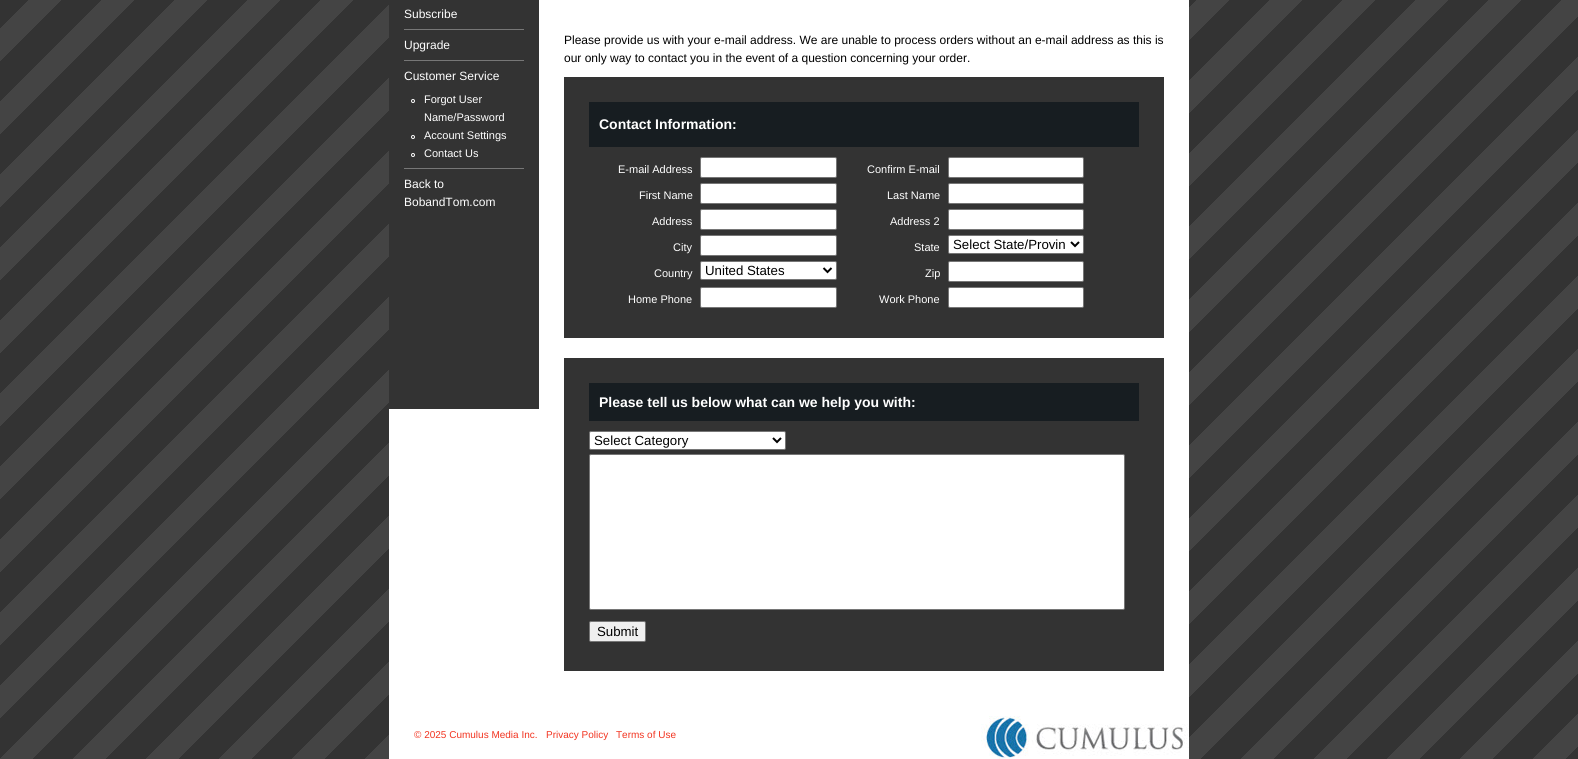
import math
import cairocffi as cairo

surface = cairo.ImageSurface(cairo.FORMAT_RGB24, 1578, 759)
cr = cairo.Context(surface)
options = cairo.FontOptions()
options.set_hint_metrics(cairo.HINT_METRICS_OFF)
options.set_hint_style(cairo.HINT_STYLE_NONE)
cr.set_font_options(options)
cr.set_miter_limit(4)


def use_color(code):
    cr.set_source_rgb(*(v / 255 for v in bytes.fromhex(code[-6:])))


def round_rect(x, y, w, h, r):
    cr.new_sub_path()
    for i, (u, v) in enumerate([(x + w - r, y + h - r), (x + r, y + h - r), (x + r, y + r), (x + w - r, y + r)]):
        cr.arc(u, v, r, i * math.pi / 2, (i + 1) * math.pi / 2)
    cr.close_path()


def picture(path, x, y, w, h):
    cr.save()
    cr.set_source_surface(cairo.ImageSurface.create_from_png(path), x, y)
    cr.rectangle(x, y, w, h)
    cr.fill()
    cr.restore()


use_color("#ffffff")
cr.paint()
picture("img1.png", 0, 0, 1578, 759)
use_color("#ffffff")
cr.rectangle(389, 0, 800, 716)
cr.fill()
use_color("#333333")
cr.rectangle(389, 0, 150, 409)
cr.fill()
cr.select_font_face("Liberation Sans")
cr.set_font_size(12)
use_color("#ffffff")
cr.move_to(404, 18)
cr.show_text("Subscribe")
use_color("#777777")
cr.rectangle(404, 29, 120, 1)
cr.fill()
use_color("#ffffff")
cr.move_to(404, 49)
cr.show_text("Upgrade")
use_color("#777777")
cr.rectangle(404, 60, 120, 1)
cr.fill()
use_color("#ffffff")
cr.move_to(404, 80)
cr.show_text("Customer Service")
cr.new_path()
cr.arc(413, 101, 1.5, 0, 2 * math.pi)
cr.set_line_width(1)
cr.stroke()
cr.set_font_size(11)
cr.move_to(424, 103)
cr.show_text("Forgot User")
cr.move_to(424, 121)
cr.show_text("Name/Password")
cr.new_path()
cr.arc(413, 137, 1.5, 0, 2 * math.pi)
cr.stroke()
cr.move_to(424, 139)
cr.show_text("Account Settings")
cr.new_path()
cr.arc(413, 155, 1.5, 0, 2 * math.pi)
cr.stroke()
cr.move_to(424, 157)
cr.show_text("Contact Us")
use_color("#777777")
cr.rectangle(404, 168, 120, 1)
cr.fill()
cr.set_font_size(12)
use_color("#ffffff")
cr.move_to(404, 188)
cr.show_text("Back to")
cr.move_to(404, 206)
cr.show_text("BobandTom.com")
use_color("#000000")
cr.move_to(564, 44)
cr.show_text("Please provide us with your e-mail address. We are unable to process orders without an e-mail address as this is")
cr.move_to(564, 62)
cr.show_text("our only way to contact you in the event of a question concerning your order.")
use_color("#333333")
cr.rectangle(564, 77, 600, 261)
cr.fill()
use_color("#171d21")
cr.rectangle(589, 102, 550, 45)
cr.fill()
cr.select_font_face("Liberation Sans", cairo.FONT_SLANT_NORMAL, cairo.FONT_WEIGHT_BOLD)
cr.set_font_size(14)
use_color("#ffffff")
cr.move_to(599, 129)
cr.show_text("Contact Information:")
cr.select_font_face("Liberation Sans")
cr.set_font_size(11)
cr.move_to(618, 173)
cr.show_text("E-mail Address")
round_rect(700.5, 157.5, 136, 20, 1.5)
cr.fill_preserve()
use_color("#767676")
cr.stroke()
use_color("#ffffff")
cr.move_to(867, 173)
cr.show_text("Confirm E-mail")
round_rect(948.5, 157.5, 135, 20, 1.5)
cr.fill_preserve()
use_color("#767676")
cr.stroke()
use_color("#ffffff")
cr.move_to(639, 199)
cr.show_text("First Name")
round_rect(700.5, 183.5, 136, 20, 1.5)
cr.fill_preserve()
use_color("#767676")
cr.stroke()
use_color("#ffffff")
cr.move_to(887, 199)
cr.show_text("Last Name")
round_rect(948.5, 183.5, 135, 20, 1.5)
cr.fill_preserve()
use_color("#767676")
cr.stroke()
use_color("#ffffff")
cr.move_to(652, 225)
cr.show_text("Address")
round_rect(700.5, 209.5, 136, 20, 1.5)
cr.fill_preserve()
use_color("#767676")
cr.stroke()
use_color("#ffffff")
cr.move_to(890, 225)
cr.show_text("Address 2")
round_rect(948.5, 209.5, 135, 20, 1.5)
cr.fill_preserve()
use_color("#767676")
cr.stroke()
use_color("#ffffff")
cr.move_to(673, 251)
cr.show_text("City")
round_rect(700.5, 235.5, 136, 20, 1.5)
cr.fill_preserve()
use_color("#767676")
cr.stroke()
use_color("#ffffff")
cr.move_to(914, 251)
cr.show_text("State")
round_rect(948.5, 235.5, 135, 18, 1.5)
cr.fill_preserve()
use_color("#767676")
cr.stroke()
cr.new_path()
cr.move_to(1071, 242)
cr.line_to(1075, 246)
cr.line_to(1079, 242)
use_color("#000000")
cr.set_line_width(2)
cr.stroke()
cr.set_font_size(13.25)
cr.move_to(953, 249)
cr.show_text("Select State/Provin")
cr.set_font_size(11)
use_color("#ffffff")
cr.move_to(654, 277)
cr.show_text("Country")
round_rect(700.5, 261.5, 136, 18, 1.5)
cr.fill_preserve()
use_color("#767676")
cr.set_line_width(1)
cr.stroke()
cr.new_path()
cr.move_to(823.5, 268)
cr.line_to(827.5, 272)
cr.line_to(831.5, 268)
use_color("#000000")
cr.set_line_width(2)
cr.stroke()
cr.set_font_size(13.25)
cr.move_to(705, 275)
cr.show_text("United States")
cr.set_font_size(11)
use_color("#ffffff")
cr.move_to(925, 277)
cr.show_text("Zip")
round_rect(948.5, 261.5, 135, 20, 1.5)
cr.fill_preserve()
use_color("#767676")
cr.set_line_width(1)
cr.stroke()
use_color("#ffffff")
cr.move_to(628, 303)
cr.show_text("Home Phone")
round_rect(700.5, 287.5, 136, 20, 1.5)
cr.fill_preserve()
use_color("#767676")
cr.stroke()
use_color("#ffffff")
cr.move_to(879, 303)
cr.show_text("Work Phone")
round_rect(948.5, 287.5, 135, 20, 1.5)
cr.fill_preserve()
use_color("#767676")
cr.stroke()
use_color("#333333")
cr.rectangle(564, 358, 600, 313)
cr.fill()
use_color("#171d21")
cr.rectangle(589, 383, 550, 38)
cr.fill()
cr.select_font_face("Liberation Sans", cairo.FONT_SLANT_NORMAL, cairo.FONT_WEIGHT_BOLD)
cr.set_font_size(14)
use_color("#ffffff")
cr.move_to(599, 407)
cr.show_text("Please tell us below what can we help you with:")
round_rect(589.5, 431.5, 196, 18, 1.5)
cr.fill_preserve()
use_color("#767676")
cr.stroke()
cr.new_path()
cr.move_to(773, 438)
cr.line_to(777, 442)
cr.line_to(781, 438)
use_color("#000000")
cr.set_line_width(2)
cr.stroke()
cr.select_font_face("Liberation Sans")
cr.set_font_size(13.25)
cr.move_to(594, 445)
cr.show_text("Select Category")
use_color("#ffffff")
round_rect(589.5, 454.5, 535, 155, 1.5)
cr.fill_preserve()
use_color("#767676")
cr.set_line_width(1)
cr.stroke()
use_color("#efefef")
round_rect(589.5, 621.5, 56, 20, 1.5)
cr.fill_preserve()
use_color("#767676")
cr.stroke()
use_color("#000000")
cr.move_to(597, 636)
cr.show_text("Submit")
picture("img2.png", 389, 716, 800, 43)
cr.set_font_size(10)
use_color("#f23420")
cr.move_to(414, 738)
cr.show_text("© 2025 Cumulus Media Inc.")
cr.move_to(546, 738)
cr.show_text("Privacy Policy")
cr.move_to(616, 738)
cr.show_text("Terms of Use")
surface.write_to_png("result.png")
